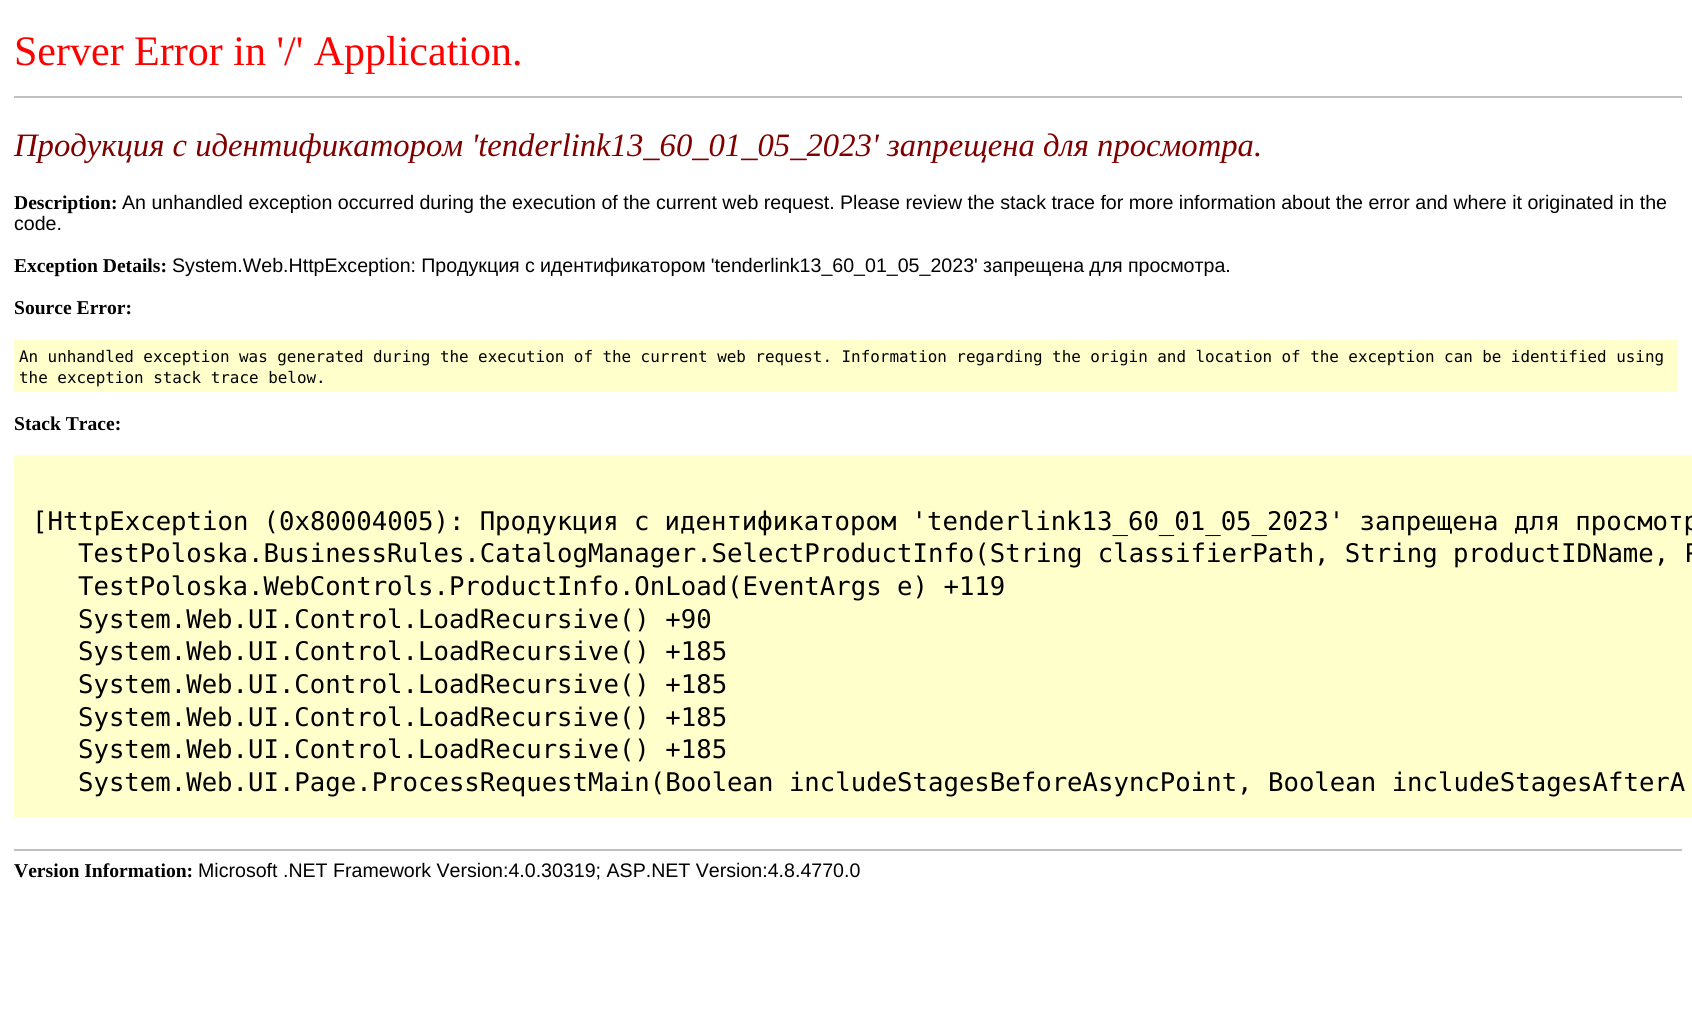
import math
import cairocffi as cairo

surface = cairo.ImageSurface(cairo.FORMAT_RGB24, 1692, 1015)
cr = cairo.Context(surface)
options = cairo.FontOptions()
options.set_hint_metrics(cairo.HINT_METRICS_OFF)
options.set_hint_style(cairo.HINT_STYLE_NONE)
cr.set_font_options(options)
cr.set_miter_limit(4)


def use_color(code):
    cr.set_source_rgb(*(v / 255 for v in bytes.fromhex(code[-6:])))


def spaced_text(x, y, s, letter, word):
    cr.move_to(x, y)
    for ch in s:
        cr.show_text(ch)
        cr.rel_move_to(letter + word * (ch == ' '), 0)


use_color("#ffffff")
cr.paint()
cr.select_font_face("Liberation Serif")
cr.set_font_size(42)
use_color("#ff0000")
cr.move_to(14, 65)
cr.show_text("Server Error in '/' Application.")
use_color("#c0c0c0")
cr.rectangle(14, 96, 1668, 2)
cr.fill()
cr.select_font_face("Liberation Serif", cairo.FONT_SLANT_ITALIC)
cr.set_font_size(32.65)
use_color("#800000")
cr.move_to(14, 156)
cr.show_text("Продукция с идентификатором 'tenderlink13_60_01_05_2023' запрещена для просмотра.")
cr.select_font_face("Liberation Serif", cairo.FONT_SLANT_NORMAL, cairo.FONT_WEIGHT_BOLD)
cr.set_font_size(19.6)
use_color("#000000")
cr.move_to(14, 209)
cr.show_text("Description:")
cr.select_font_face("Liberation Sans")
cr.move_to(122, 209)
cr.show_text("An unhandled exception occurred during the execution of the current web request. Please review the stack trace for more information about the error and where it originated in the")
cr.move_to(14, 230)
cr.show_text("code.")
cr.select_font_face("Liberation Serif", cairo.FONT_SLANT_NORMAL, cairo.FONT_WEIGHT_BOLD)
cr.move_to(14, 272)
cr.show_text("Exception Details:")
cr.select_font_face("Liberation Sans")
spaced_text(172, 272, "System.Web.HttpException: Продукция с идентификатором 'tenderlink13_60_01_05_2023' запрещена для просмотра.", 0, -0.25)
cr.select_font_face("Liberation Serif", cairo.FONT_SLANT_NORMAL, cairo.FONT_WEIGHT_BOLD)
cr.move_to(14, 314)
cr.show_text("Source Error:")
use_color("#ffffcc")
cr.rectangle(14, 340, 1664, 52)
cr.fill()
cr.select_font_face("DejaVu Sans Mono")
cr.set_font_size(15.92)
use_color("#000000")
spaced_text(19, 362, "An unhandled exception was generated during the execution of the current web request. Information regarding the origin and location of the exception can be identified using", 0, -0.15)
cr.move_to(19, 383)
cr.show_text("the exception stack trace below.")
cr.select_font_face("Liberation Serif", cairo.FONT_SLANT_NORMAL, cairo.FONT_WEIGHT_BOLD)
cr.set_font_size(19.6)
cr.move_to(14, 430)
cr.show_text("Stack Trace:")
use_color("#ffffcc")
cr.rectangle(14, 455, 1678, 362)
cr.fill()
cr.select_font_face("DejaVu Sans Mono")
cr.set_font_size(25.67)
use_color("#000000")
spaced_text(32, 530, "[HttpException (0x80004005): Продукция с идентификатором 'tenderlink13_60_01_05_2023' запрещена для просмотр", 0, -0.25)
spaced_text(78, 562, "TestPoloska.BusinessRules.CatalogManager.SelectProductInfo(String classifierPath, String productIDName, P", 0, -0.15)
cr.move_to(78, 595)
cr.show_text("TestPoloska.WebControls.ProductInfo.OnLoad(EventArgs e) +119")
cr.move_to(78, 628)
cr.show_text("System.Web.UI.Control.LoadRecursive() +90")
cr.move_to(78, 660)
cr.show_text("System.Web.UI.Control.LoadRecursive() +185")
cr.move_to(78, 693)
cr.show_text("System.Web.UI.Control.LoadRecursive() +185")
cr.move_to(78, 726)
cr.show_text("System.Web.UI.Control.LoadRecursive() +185")
cr.move_to(78, 758)
cr.show_text("System.Web.UI.Control.LoadRecursive() +185")
cr.move_to(78, 791)
cr.show_text("System.Web.UI.Page.ProcessRequestMain(Boolean includeStagesBeforeAsyncPoint, Boolean includeStagesAfterA")
use_color("#c0c0c0")
cr.rectangle(14, 849, 1668, 2)
cr.fill()
cr.select_font_face("Liberation Serif", cairo.FONT_SLANT_NORMAL, cairo.FONT_WEIGHT_BOLD)
cr.set_font_size(19.6)
use_color("#000000")
cr.move_to(14, 877)
cr.show_text("Version Information:")
cr.select_font_face("Liberation Sans")
cr.move_to(198, 877)
cr.show_text("Microsoft .NET Framework Version:4.0.30319; ASP.NET Version:4.8.4770.0")
surface.write_to_png("result.png")
